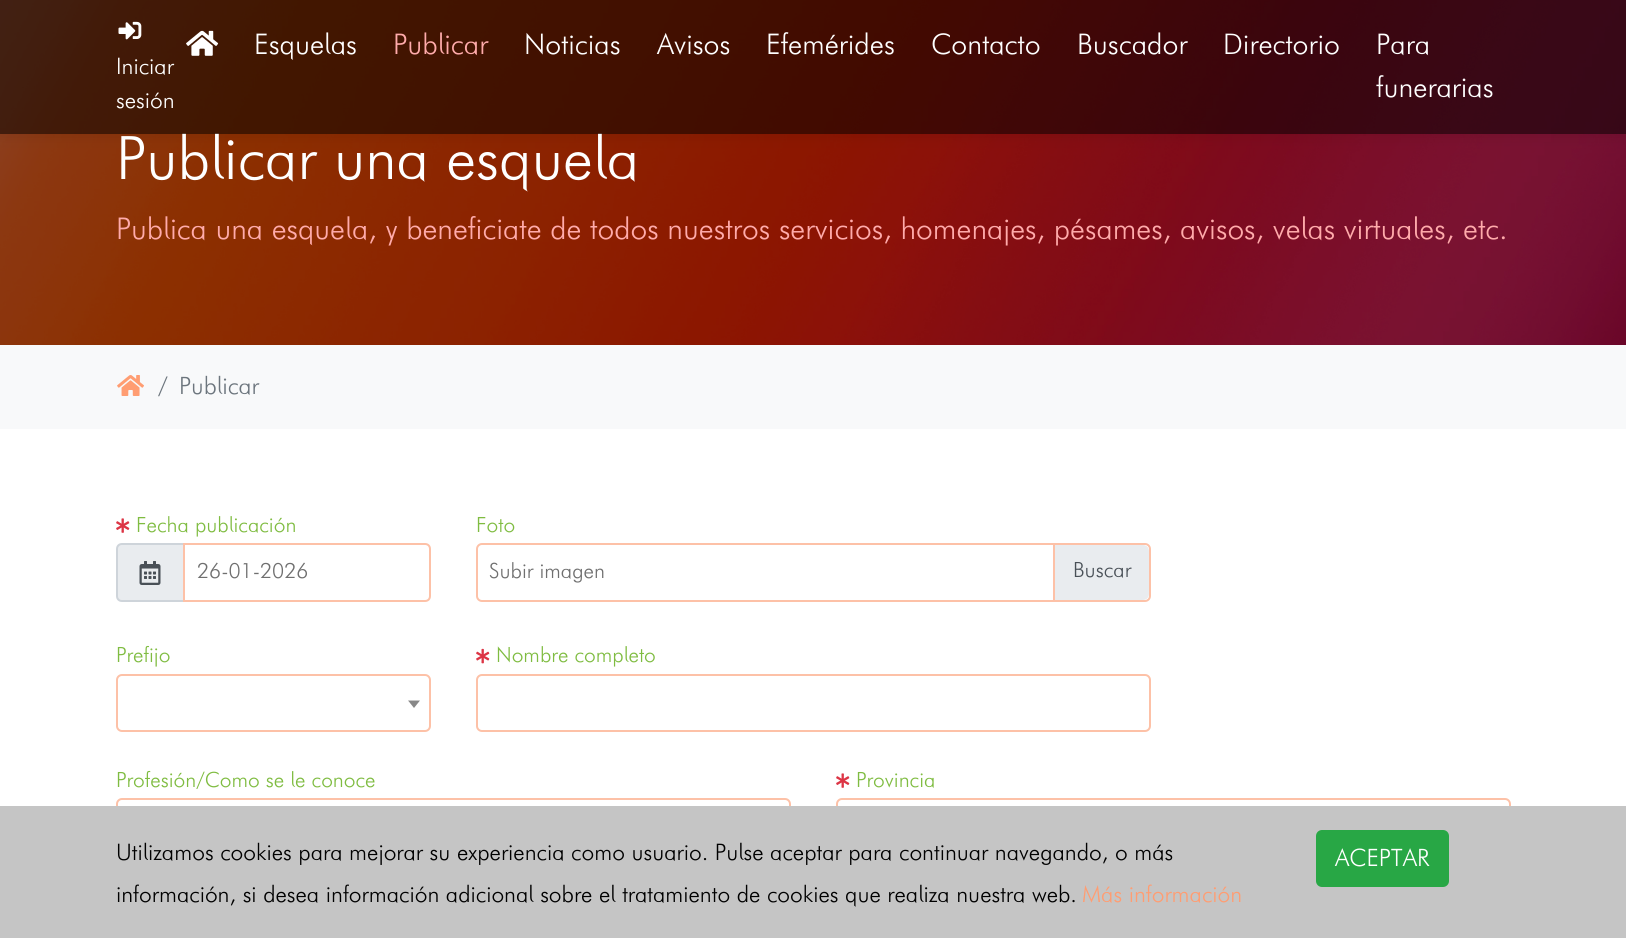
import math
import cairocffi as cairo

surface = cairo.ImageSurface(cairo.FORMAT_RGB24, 1626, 938)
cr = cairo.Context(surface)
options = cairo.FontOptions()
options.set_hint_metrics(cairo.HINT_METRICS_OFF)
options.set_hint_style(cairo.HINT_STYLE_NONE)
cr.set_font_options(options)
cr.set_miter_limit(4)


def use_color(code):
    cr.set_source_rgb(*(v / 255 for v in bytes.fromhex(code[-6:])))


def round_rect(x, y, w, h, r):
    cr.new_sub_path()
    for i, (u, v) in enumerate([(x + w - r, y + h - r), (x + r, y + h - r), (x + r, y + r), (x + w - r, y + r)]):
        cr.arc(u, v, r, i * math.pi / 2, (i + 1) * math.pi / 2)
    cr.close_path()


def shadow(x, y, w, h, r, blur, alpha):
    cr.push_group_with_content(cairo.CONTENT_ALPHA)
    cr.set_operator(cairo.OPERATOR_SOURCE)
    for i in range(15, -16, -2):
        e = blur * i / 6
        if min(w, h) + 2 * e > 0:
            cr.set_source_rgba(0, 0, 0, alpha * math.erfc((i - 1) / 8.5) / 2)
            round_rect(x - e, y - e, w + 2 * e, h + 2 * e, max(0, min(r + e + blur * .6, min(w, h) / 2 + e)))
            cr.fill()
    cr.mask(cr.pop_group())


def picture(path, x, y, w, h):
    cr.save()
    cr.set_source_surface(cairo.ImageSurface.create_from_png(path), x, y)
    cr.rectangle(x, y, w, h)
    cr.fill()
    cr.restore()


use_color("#ffffff")
cr.paint()
picture("img3.png", 0, 0, 1626, 345)
cr.save()
cr.set_fill_rule(cairo.FILL_RULE_EVEN_ODD)
cr.new_path()
cr.move_to(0, 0)
cr.line_to(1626, 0)
cr.line_to(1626, 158)
cr.line_to(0, 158)
cr.close_path()
cr.move_to(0, 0)
cr.line_to(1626, 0)
cr.line_to(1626, 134)
cr.line_to(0, 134)
cr.close_path()
cr.clip()
use_color("#000000")
shadow(0, 0, 1626, 134, 0, 7.5, 0.1)
cr.restore()
cr.select_font_face("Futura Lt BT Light")
cr.set_font_size(60)
use_color("#ffffff")
cr.move_to(116, 179)
cr.show_text("Publicar una esquela")
cr.set_source_rgba(0, 0, 0, 0.53)
cr.rectangle(0, 0, 1626, 134)
cr.fill()
picture("img1.png", 118, 21, 24, 19)
cr.set_font_size(22.8)
use_color("#ffffff")
cr.move_to(116, 74)
cr.show_text("Iniciar")
cr.move_to(116, 108)
cr.show_text("sesión")
picture("img2.png", 186, 30, 33, 26)
cr.set_font_size(28.5)
cr.move_to(254, 54)
cr.show_text("Esquelas")
use_color("#ffabab")
cr.move_to(393, 54)
cr.show_text("Publicar")
use_color("#ffffff")
cr.move_to(524, 54)
cr.show_text("Noticias")
cr.move_to(657, 54)
cr.show_text("Avisos")
cr.move_to(766, 54)
cr.show_text("Efemérides")
cr.move_to(931, 54)
cr.show_text("Contacto")
cr.move_to(1077, 54)
cr.show_text("Buscador")
cr.move_to(1223, 54)
cr.show_text("Directorio")
cr.move_to(1376, 54)
cr.show_text("Para")
cr.move_to(1376, 97)
cr.show_text("funerarias")
cr.set_font_size(30)
use_color("#ffabab")
cr.move_to(116, 239)
cr.show_text("Publica una esquela, y beneficiate de todos nuestros servicios, homenajes, pésames, avisos, velas virtuales, etc.")
use_color("#f8f9fa")
cr.rectangle(0, 345, 1626, 84)
cr.fill()
picture("img4.png", 117, 375, 27, 21)
cr.set_font_size(24)
use_color("#6c757d")
cr.move_to(158, 394)
cr.show_text("/")
cr.move_to(179, 394)
cr.show_text("Publicar")
picture("img5.png", 116, 518, 14, 15)
cr.set_font_size(21)
use_color("#7fbc41")
cr.move_to(136, 532)
cr.show_text("Fecha publicación")
use_color("#e9ecef")
cr.new_path()
cr.move_to(122, 544)
cr.line_to(184, 544)
cr.line_to(184, 601)
cr.line_to(122, 601)
cr.curve_to(119, 601, 117, 599, 117, 596)
cr.line_to(117, 549)
cr.curve_to(117, 546, 119, 544, 122, 544)
cr.close_path()
cr.fill_preserve()
use_color("#ced4da")
cr.stroke()
picture("img6.png", 139, 561, 22, 24)
cr.new_path()
cr.move_to(184, 544)
cr.line_to(425, 544)
cr.curve_to(428, 544, 430, 546, 430, 549)
cr.line_to(430, 596)
cr.curve_to(430, 599, 428, 601, 425, 601)
cr.line_to(184, 601)
cr.close_path()
use_color("#fdc1a7")
cr.stroke()
use_color("#6f6f6f")
cr.move_to(197, 578)
cr.show_text("26-01-2026")
use_color("#7fbc41")
cr.move_to(476, 532)
cr.show_text("Foto")
round_rect(477, 544, 673, 57, 5)
use_color("#fdc1a7")
cr.stroke()
use_color("#6f6f6f")
cr.move_to(489, 578)
cr.show_text("Subir imagen")
cr.save()
round_rect(477, 545, 672, 55, 5)
cr.clip()
use_color("#e9ecef")
cr.new_path()
cr.move_to(1053, 545)
cr.line_to(1143, 545)
cr.curve_to(1146.5, 545, 1149, 547.5, 1149, 551)
cr.line_to(1149, 594)
cr.curve_to(1149, 597.5, 1146.5, 600, 1143, 600)
cr.line_to(1053, 600)
cr.close_path()
cr.fill()
cr.restore()
use_color("#fdc1a7")
cr.rectangle(1053, 545, 2, 55)
cr.fill()
use_color("#495057")
cr.move_to(1073, 577)
cr.show_text("Buscar")
use_color("#7fbc41")
cr.move_to(116, 662)
cr.show_text("Prefijo")
round_rect(117, 675, 313, 56, 5)
use_color("#fdc1a7")
cr.stroke()
use_color("#888888")
cr.new_path()
cr.move_to(408, 700.5)
cr.line_to(420, 700.5)
cr.line_to(414, 708)
cr.close_path()
cr.fill()
picture("img7.png", 476, 648, 14, 16)
use_color("#7fbc41")
cr.move_to(496, 662)
cr.show_text("Nombre completo")
round_rect(477, 675, 673, 56, 5)
use_color("#fdc1a7")
cr.stroke()
use_color("#7fbc41")
cr.move_to(116, 787)
cr.show_text("Profesión/Como se le conoce")
round_rect(117, 799, 673, 57, 5)
use_color("#fdc1a7")
cr.stroke()
picture("img5.png", 836, 773, 14, 15)
use_color("#7fbc41")
cr.move_to(856, 787)
cr.show_text("Provincia")
round_rect(837, 799, 673, 57, 5)
use_color("#fdc1a7")
cr.stroke()
use_color("#c5c5c5")
cr.rectangle(0, 806, 1626, 132)
cr.fill()
cr.set_font_size(22.8)
use_color("#000000")
cr.move_to(116, 860)
cr.show_text("Utilizamos cookies para mejorar su experiencia como usuario. Pulse aceptar para continuar navegando, o más")
cr.move_to(116, 902)
cr.show_text("información, si desea información adicional sobre el tratamiento de cookies que realiza nuestra web.")
use_color("#ff9d72")
cr.move_to(1082, 902)
cr.show_text("Más información")
use_color("#28a745")
round_rect(1317, 831, 131, 55, 5)
cr.fill_preserve()
cr.stroke()
cr.set_font_size(24)
use_color("#ffffff")
cr.move_to(1335, 866)
cr.show_text("ACEPTAR")
surface.write_to_png("result.png")
